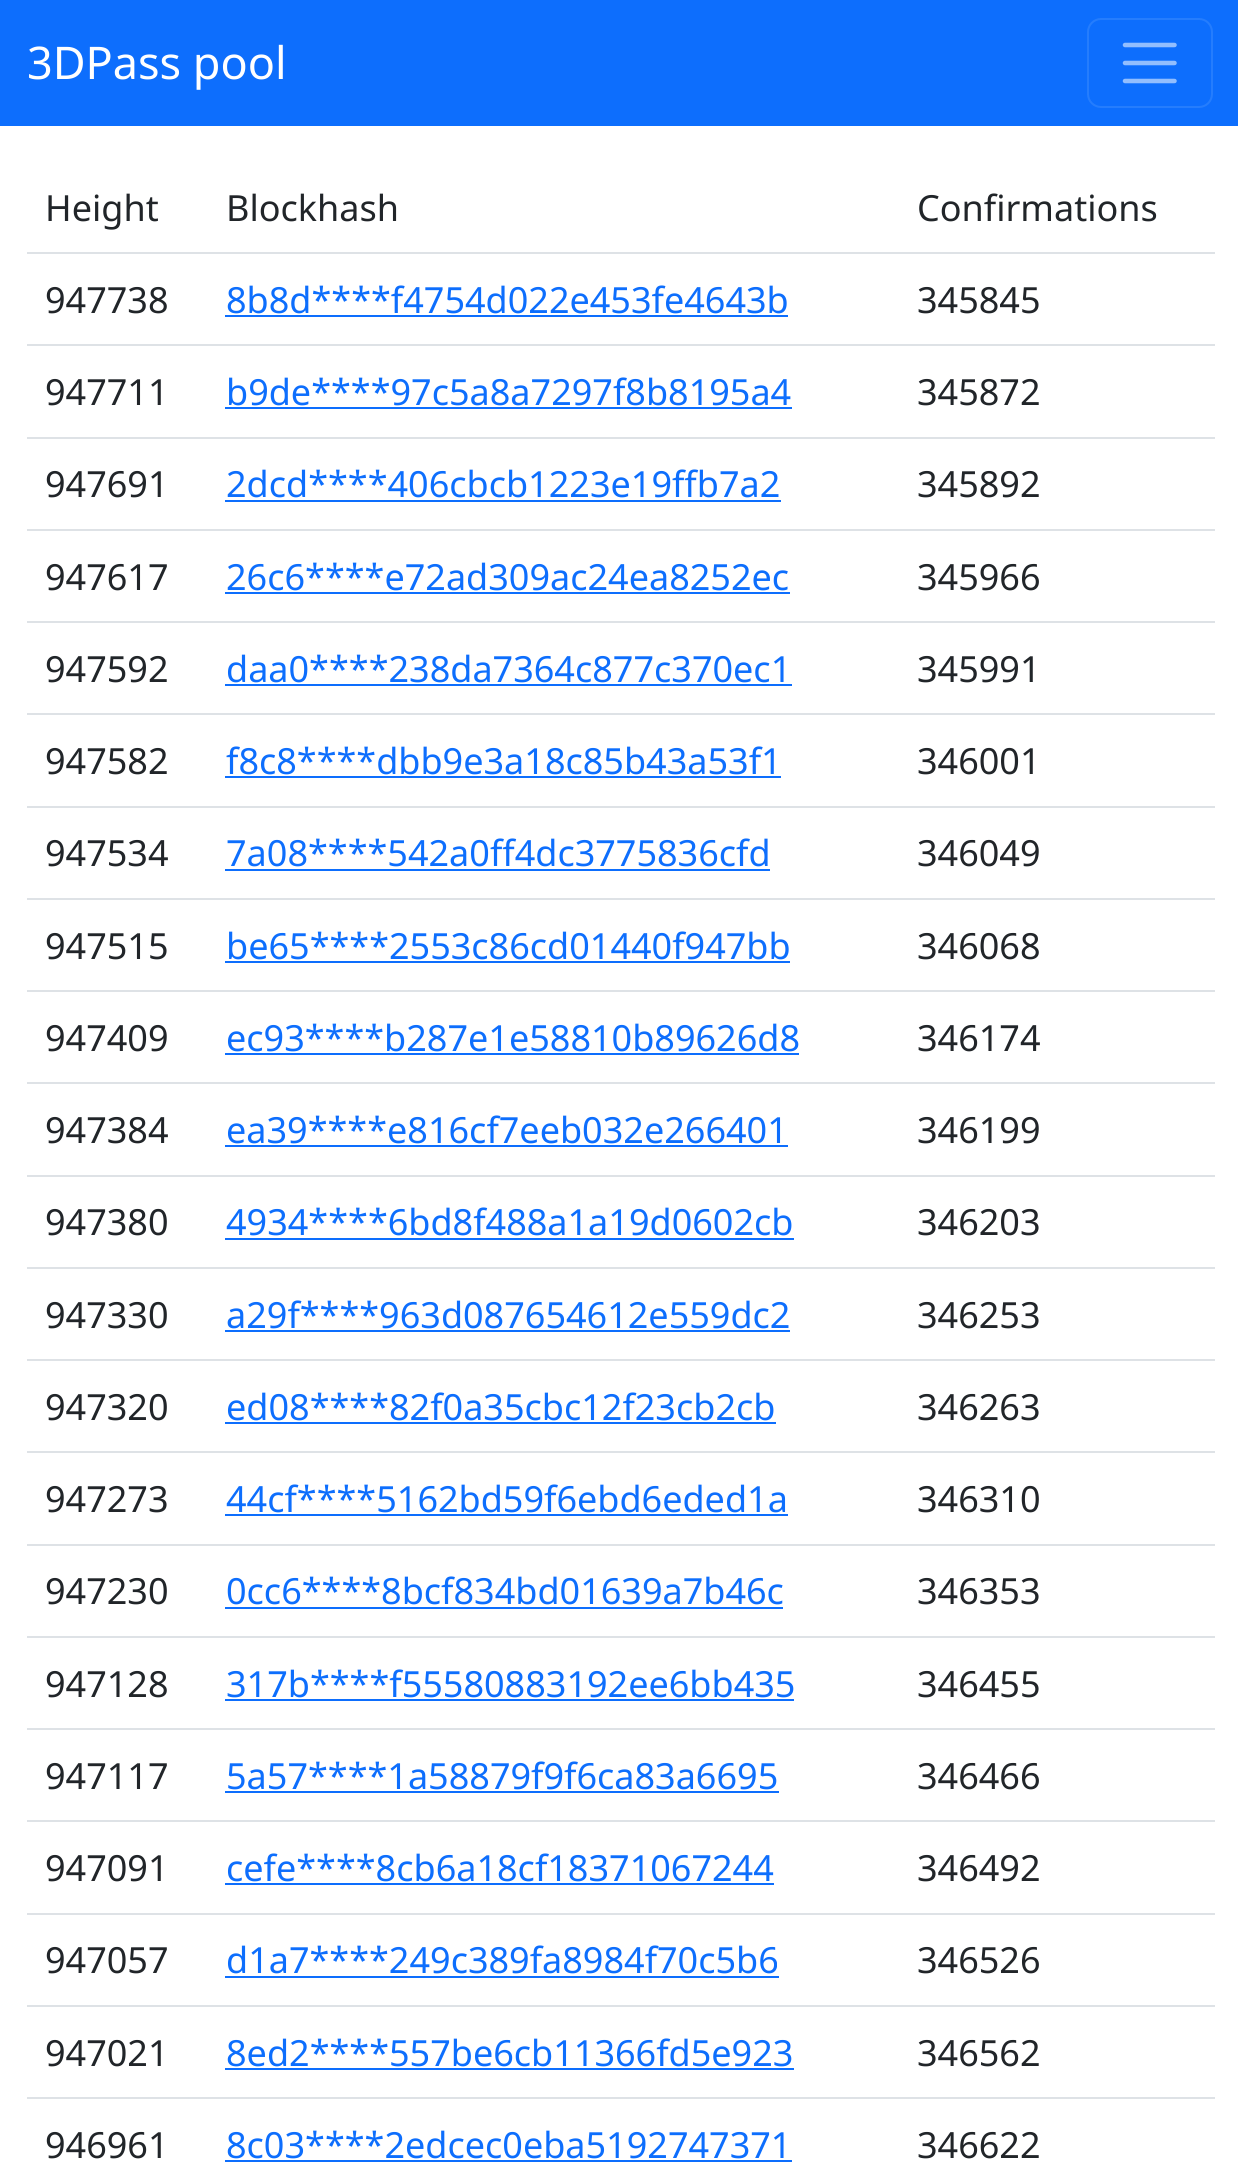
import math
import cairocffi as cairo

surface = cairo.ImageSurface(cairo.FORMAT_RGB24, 1238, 2165)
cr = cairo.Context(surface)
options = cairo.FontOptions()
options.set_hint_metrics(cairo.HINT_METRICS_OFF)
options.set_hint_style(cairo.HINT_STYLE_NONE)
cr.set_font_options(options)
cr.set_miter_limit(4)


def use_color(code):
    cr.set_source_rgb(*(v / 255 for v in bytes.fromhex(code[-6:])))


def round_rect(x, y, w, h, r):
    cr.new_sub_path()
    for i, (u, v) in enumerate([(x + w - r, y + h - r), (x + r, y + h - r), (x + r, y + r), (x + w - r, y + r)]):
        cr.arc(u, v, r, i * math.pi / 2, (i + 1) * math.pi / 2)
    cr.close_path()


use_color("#ffffff")
cr.paint()
use_color("#0d6efd")
cr.rectangle(0, 0, 1238, 126)
cr.fill()
cr.select_font_face("Noto Sans")
cr.set_font_size(45)
use_color("#ffffff")
cr.move_to(27, 79)
cr.show_text("3DPass pool")
round_rect(1088, 19, 124, 88, 13)
use_color("#257dfd")
cr.stroke()
cr.new_path()
cr.move_to(1125, 45)
cr.line_to(1174.5, 45)
cr.move_to(1125, 63)
cr.line_to(1174.5, 63)
cr.move_to(1125, 81)
cr.line_to(1174.5, 81)
use_color("#92befe")
cr.set_line_width(4.5)
cr.set_line_cap(cairo.LINE_CAP_ROUND)
cr.stroke()
cr.set_font_size(36)
use_color("#212529")
cr.move_to(45, 221)
cr.show_text("Height")
cr.move_to(226, 221)
cr.show_text("Blockhash")
use_color("#dee2e6")
cr.rectangle(27, 252, 1188, 2)
cr.fill()
use_color("#212529")
cr.move_to(917, 221)
cr.show_text("Confirmations")
cr.move_to(45, 313)
cr.show_text("947738")
use_color("#0d6efd")
cr.move_to(226, 313)
cr.show_text("8b8d****f4754d022e453fe4643b")
cr.rectangle(225, 315, 563, 2)
cr.fill()
use_color("#dee2e6")
cr.rectangle(27, 344, 1188, 2)
cr.fill()
use_color("#212529")
cr.move_to(917, 313)
cr.show_text("345845")
cr.move_to(45, 405)
cr.show_text("947711")
use_color("#0d6efd")
cr.move_to(226, 405)
cr.show_text("b9de****97c5a8a7297f8b8195a4")
cr.rectangle(225, 407, 567, 2)
cr.fill()
use_color("#dee2e6")
cr.rectangle(27, 437, 1188, 2)
cr.fill()
use_color("#212529")
cr.move_to(917, 405)
cr.show_text("345872")
cr.move_to(45, 497)
cr.show_text("947691")
use_color("#0d6efd")
cr.move_to(226, 497)
cr.show_text("2dcd****406cbcb1223e19ffb7a2")
cr.rectangle(225, 500, 556, 2)
cr.fill()
use_color("#dee2e6")
cr.rectangle(27, 529, 1188, 2)
cr.fill()
use_color("#212529")
cr.move_to(917, 497)
cr.show_text("345892")
cr.move_to(45, 590)
cr.show_text("947617")
use_color("#0d6efd")
cr.move_to(226, 590)
cr.show_text("26c6****e72ad309ac24ea8252ec")
cr.rectangle(225, 592, 565, 2)
cr.fill()
use_color("#dee2e6")
cr.rectangle(27, 621, 1188, 2)
cr.fill()
use_color("#212529")
cr.move_to(917, 590)
cr.show_text("345966")
cr.move_to(45, 682)
cr.show_text("947592")
use_color("#0d6efd")
cr.move_to(226, 682)
cr.show_text("daa0****238da7364c877c370ec1")
cr.rectangle(225, 684, 567, 2)
cr.fill()
use_color("#dee2e6")
cr.rectangle(27, 713, 1188, 2)
cr.fill()
use_color("#212529")
cr.move_to(917, 682)
cr.show_text("345991")
cr.move_to(45, 774)
cr.show_text("947582")
use_color("#0d6efd")
cr.move_to(226, 774)
cr.show_text("f8c8****dbb9e3a18c85b43a53f1")
cr.rectangle(225, 776, 556, 2)
cr.fill()
use_color("#dee2e6")
cr.rectangle(27, 806, 1188, 2)
cr.fill()
use_color("#212529")
cr.move_to(917, 774)
cr.show_text("346001")
cr.move_to(45, 866)
cr.show_text("947534")
use_color("#0d6efd")
cr.move_to(226, 866)
cr.show_text("7a08****542a0ff4dc3775836cfd")
cr.rectangle(225, 869, 545, 2)
cr.fill()
use_color("#dee2e6")
cr.rectangle(27, 898, 1188, 2)
cr.fill()
use_color("#212529")
cr.move_to(917, 866)
cr.show_text("346049")
cr.move_to(45, 959)
cr.show_text("947515")
use_color("#0d6efd")
cr.move_to(226, 959)
cr.show_text("be65****2553c86cd01440f947bb")
cr.rectangle(225, 961, 565, 2)
cr.fill()
use_color("#dee2e6")
cr.rectangle(27, 990, 1188, 2)
cr.fill()
use_color("#212529")
cr.move_to(917, 959)
cr.show_text("346068")
cr.move_to(45, 1051)
cr.show_text("947409")
use_color("#0d6efd")
cr.move_to(226, 1051)
cr.show_text("ec93****b287e1e58810b89626d8")
cr.rectangle(225, 1053, 574, 2)
cr.fill()
use_color("#dee2e6")
cr.rectangle(27, 1082, 1188, 2)
cr.fill()
use_color("#212529")
cr.move_to(917, 1051)
cr.show_text("346174")
cr.move_to(45, 1143)
cr.show_text("947384")
use_color("#0d6efd")
cr.move_to(226, 1143)
cr.show_text("ea39****e816cf7eeb032e266401")
cr.rectangle(225, 1145, 563, 2)
cr.fill()
use_color("#dee2e6")
cr.rectangle(27, 1175, 1188, 2)
cr.fill()
use_color("#212529")
cr.move_to(917, 1143)
cr.show_text("346199")
cr.move_to(45, 1235)
cr.show_text("947380")
use_color("#0d6efd")
cr.move_to(226, 1235)
cr.show_text("4934****6bd8f488a1a19d0602cb")
cr.rectangle(225, 1238, 569, 2)
cr.fill()
use_color("#dee2e6")
cr.rectangle(27, 1267, 1188, 2)
cr.fill()
use_color("#212529")
cr.move_to(917, 1235)
cr.show_text("346203")
cr.move_to(45, 1328)
cr.show_text("947330")
use_color("#0d6efd")
cr.move_to(226, 1328)
cr.show_text("a29f****963d087654612e559dc2")
cr.rectangle(225, 1330, 565, 2)
cr.fill()
use_color("#dee2e6")
cr.rectangle(27, 1359, 1188, 2)
cr.fill()
use_color("#212529")
cr.move_to(917, 1328)
cr.show_text("346253")
cr.move_to(45, 1420)
cr.show_text("947320")
use_color("#0d6efd")
cr.move_to(226, 1420)
cr.show_text("ed08****82f0a35cbc12f23cb2cb")
cr.rectangle(225, 1422, 551, 2)
cr.fill()
use_color("#dee2e6")
cr.rectangle(27, 1451, 1188, 2)
cr.fill()
use_color("#212529")
cr.move_to(917, 1420)
cr.show_text("346263")
cr.move_to(45, 1512)
cr.show_text("947273")
use_color("#0d6efd")
cr.move_to(226, 1512)
cr.show_text("44cf****5162bd59f6ebd6eded1a")
cr.rectangle(225, 1514, 563, 2)
cr.fill()
use_color("#dee2e6")
cr.rectangle(27, 1544, 1188, 2)
cr.fill()
use_color("#212529")
cr.move_to(917, 1512)
cr.show_text("346310")
cr.move_to(45, 1604)
cr.show_text("947230")
use_color("#0d6efd")
cr.move_to(226, 1604)
cr.show_text("0cc6****8bcf834bd01639a7b46c")
cr.rectangle(225, 1607, 558, 2)
cr.fill()
use_color("#dee2e6")
cr.rectangle(27, 1636, 1188, 2)
cr.fill()
use_color("#212529")
cr.move_to(917, 1604)
cr.show_text("346353")
cr.move_to(45, 1697)
cr.show_text("947128")
use_color("#0d6efd")
cr.move_to(226, 1697)
cr.show_text("317b****f55580883192ee6bb435")
cr.rectangle(225, 1699, 569, 2)
cr.fill()
use_color("#dee2e6")
cr.rectangle(27, 1728, 1188, 2)
cr.fill()
use_color("#212529")
cr.move_to(917, 1697)
cr.show_text("346455")
cr.move_to(45, 1789)
cr.show_text("947117")
use_color("#0d6efd")
cr.move_to(226, 1789)
cr.show_text("5a57****1a58879f9f6ca83a6695")
cr.rectangle(225, 1791, 554, 2)
cr.fill()
use_color("#dee2e6")
cr.rectangle(27, 1820, 1188, 2)
cr.fill()
use_color("#212529")
cr.move_to(917, 1789)
cr.show_text("346466")
cr.move_to(45, 1881)
cr.show_text("947091")
use_color("#0d6efd")
cr.move_to(226, 1881)
cr.show_text("cefe****8cb6a18cf18371067244")
cr.rectangle(225, 1883, 549, 2)
cr.fill()
use_color("#dee2e6")
cr.rectangle(27, 1913, 1188, 2)
cr.fill()
use_color("#212529")
cr.move_to(917, 1881)
cr.show_text("346492")
cr.move_to(45, 1973)
cr.show_text("947057")
use_color("#0d6efd")
cr.move_to(226, 1973)
cr.show_text("d1a7****249c389fa8984f70c5b6")
cr.rectangle(225, 1976, 554, 2)
cr.fill()
use_color("#dee2e6")
cr.rectangle(27, 2005, 1188, 2)
cr.fill()
use_color("#212529")
cr.move_to(917, 1973)
cr.show_text("346526")
cr.move_to(45, 2066)
cr.show_text("947021")
use_color("#0d6efd")
cr.move_to(226, 2066)
cr.show_text("8ed2****557be6cb11366fd5e923")
cr.rectangle(225, 2068, 569, 2)
cr.fill()
use_color("#dee2e6")
cr.rectangle(27, 2097, 1188, 2)
cr.fill()
use_color("#212529")
cr.move_to(917, 2066)
cr.show_text("346562")
cr.move_to(45, 2158)
cr.show_text("946961")
use_color("#0d6efd")
cr.move_to(226, 2158)
cr.show_text("8c03****2edcec0eba5192747371")
cr.rectangle(225, 2160, 567, 2)
cr.fill()
use_color("#212529")
cr.move_to(917, 2158)
cr.show_text("346622")
surface.write_to_png("result.png")
